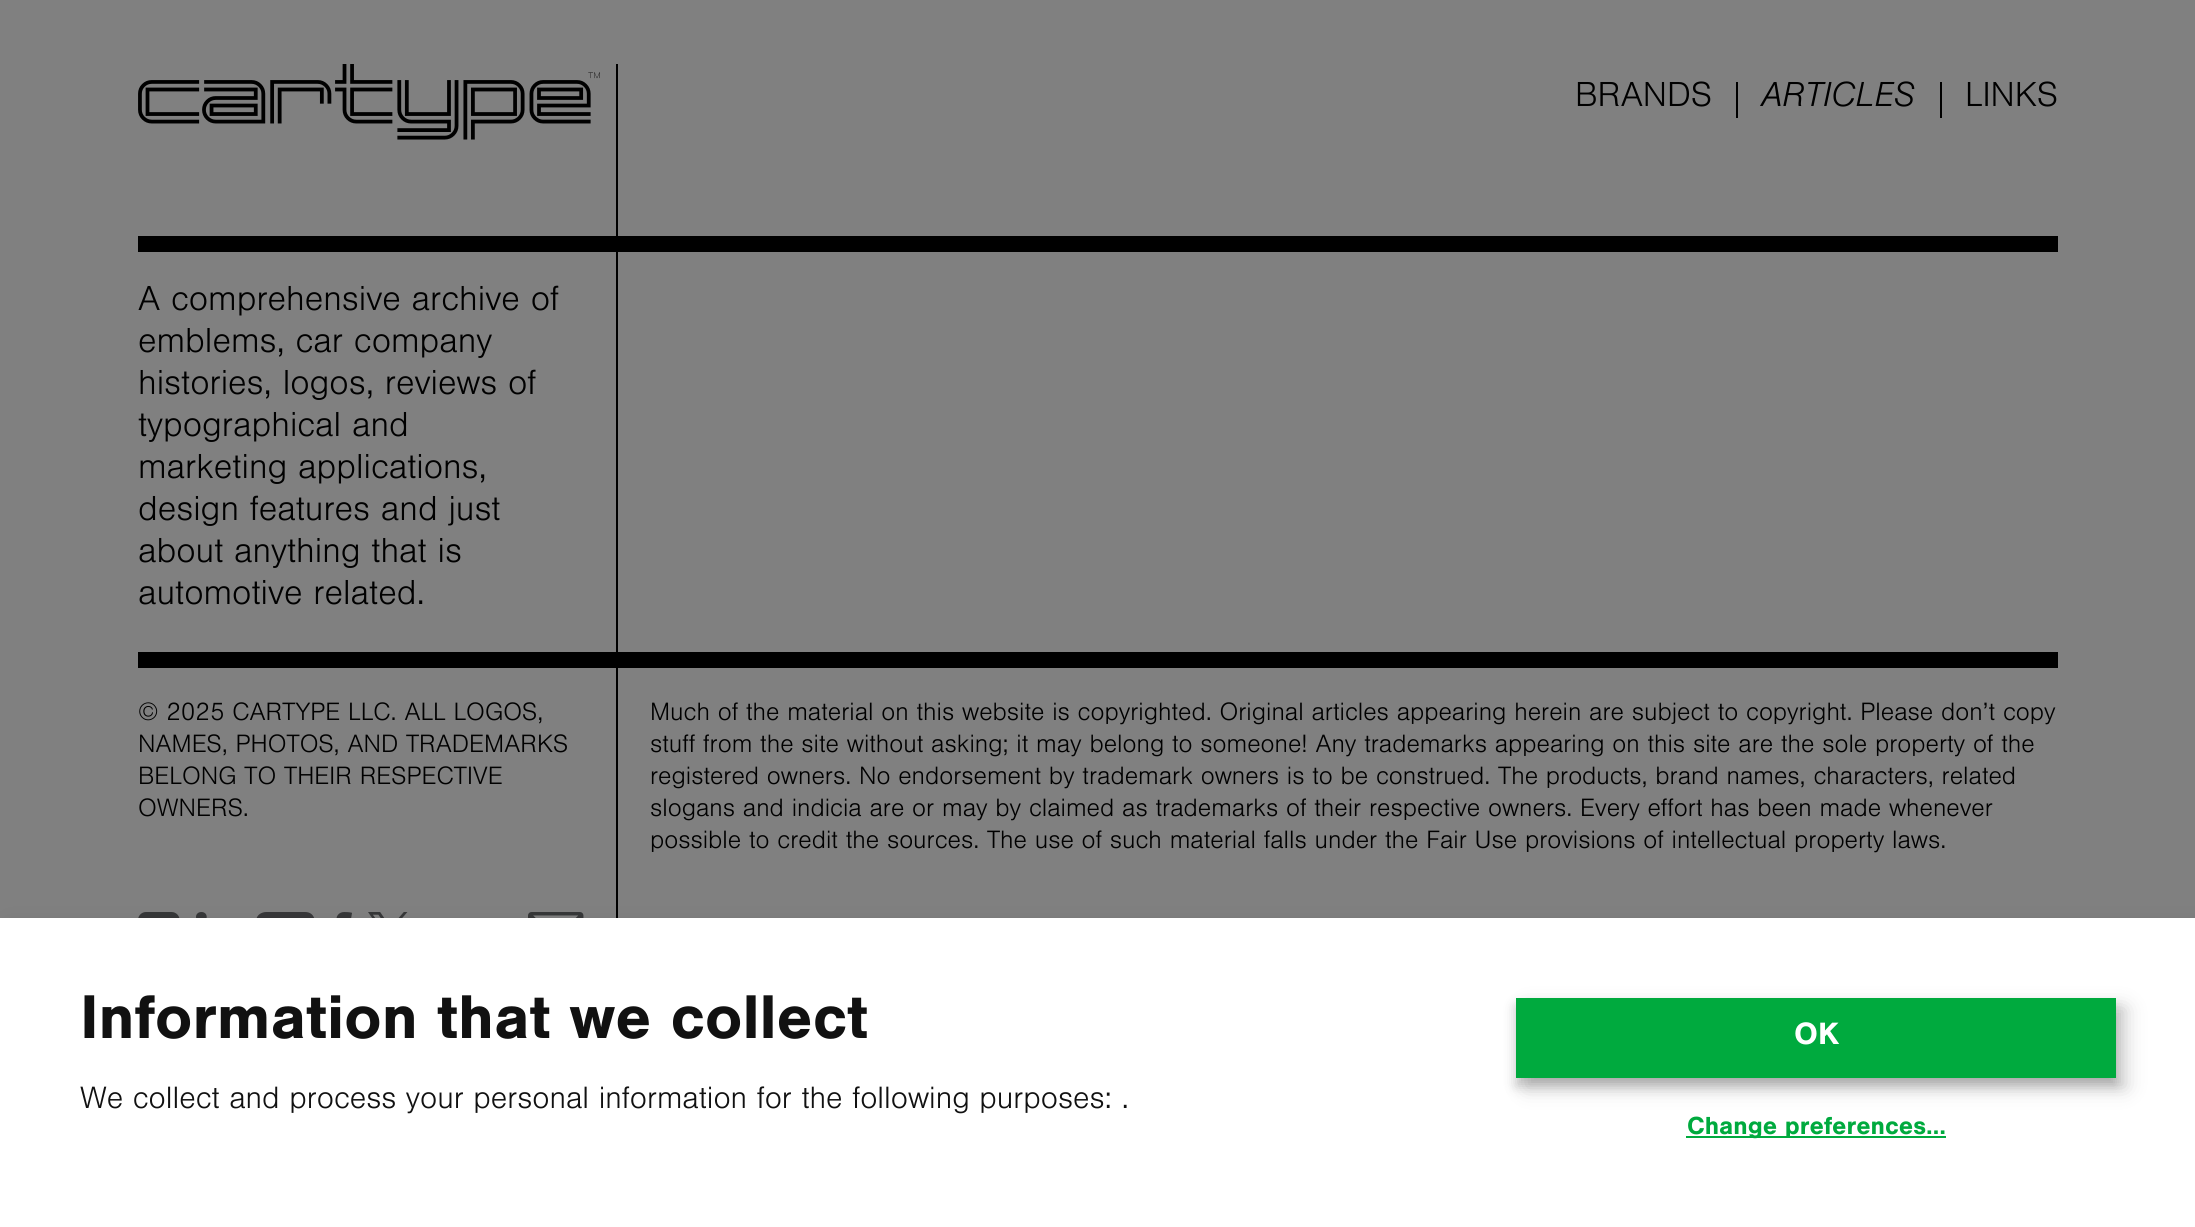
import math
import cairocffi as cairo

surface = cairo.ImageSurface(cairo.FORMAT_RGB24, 2195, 1227)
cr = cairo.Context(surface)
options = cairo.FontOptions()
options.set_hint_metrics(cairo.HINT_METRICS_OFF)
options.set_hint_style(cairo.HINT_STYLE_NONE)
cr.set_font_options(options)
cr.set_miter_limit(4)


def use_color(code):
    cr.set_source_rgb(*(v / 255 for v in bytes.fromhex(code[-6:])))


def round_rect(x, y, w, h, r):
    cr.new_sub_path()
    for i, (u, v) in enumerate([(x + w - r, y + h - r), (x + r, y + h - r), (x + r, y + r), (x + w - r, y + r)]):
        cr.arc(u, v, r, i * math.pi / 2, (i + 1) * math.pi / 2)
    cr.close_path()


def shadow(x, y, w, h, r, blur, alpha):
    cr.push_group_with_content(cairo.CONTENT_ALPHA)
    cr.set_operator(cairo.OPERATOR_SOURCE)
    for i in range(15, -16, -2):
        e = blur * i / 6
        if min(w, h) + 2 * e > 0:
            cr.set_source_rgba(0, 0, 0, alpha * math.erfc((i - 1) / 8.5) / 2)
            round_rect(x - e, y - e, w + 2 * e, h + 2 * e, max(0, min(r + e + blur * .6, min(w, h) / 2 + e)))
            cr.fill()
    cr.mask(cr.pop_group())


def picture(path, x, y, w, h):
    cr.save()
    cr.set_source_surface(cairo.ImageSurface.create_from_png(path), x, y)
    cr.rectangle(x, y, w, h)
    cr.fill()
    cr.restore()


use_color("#808080")
cr.paint()
use_color("#000000")
cr.rectangle(138, 236, 1920, 16)
cr.fill()
cr.rectangle(616, 64, 2, 172)
cr.fill()
picture("img1.png", 138, 64, 462, 76)
cr.select_font_face("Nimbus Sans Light")
cr.set_font_size(36)
cr.move_to(1575, 106)
cr.show_text("BRANDS")
cr.rectangle(1736, 82, 2, 36)
cr.fill()
cr.select_font_face("Nimbus Sans Light", cairo.FONT_SLANT_ITALIC)
cr.move_to(1761, 106)
cr.show_text("ARTICLES")
cr.rectangle(1940, 82, 2, 36)
cr.fill()
cr.select_font_face("Nimbus Sans Light")
cr.move_to(1965, 106)
cr.show_text("LINKS")
cr.rectangle(616, 252, 2, 400)
cr.fill()
cr.move_to(138, 310)
cr.show_text("A comprehensive archive of")
cr.move_to(138, 352)
cr.show_text("emblems, car company")
cr.move_to(138, 394)
cr.show_text("histories, logos, reviews of")
cr.move_to(138, 436)
cr.show_text("typographical and")
cr.move_to(138, 478)
cr.show_text("marketing applications,")
cr.move_to(138, 520)
cr.show_text("design features and just")
cr.move_to(138, 562)
cr.show_text("about anything that is")
cr.move_to(138, 604)
cr.show_text("automotive related.")
cr.rectangle(138, 652, 1920, 16)
cr.fill()
cr.rectangle(616, 668, 2, 250)
cr.fill()
cr.set_font_size(26.02)
cr.move_to(138, 720)
cr.show_text("© 2025 CARTYPE LLC. ALL LOGOS,")
cr.move_to(138, 752)
cr.show_text("NAMES, PHOTOS, AND TRADEMARKS")
cr.move_to(138, 784)
cr.show_text("BELONG TO THEIR RESPECTIVE")
cr.move_to(138, 816)
cr.show_text("OWNERS.")
picture("img2.png", 138, 912, 42, 6)
picture("img3.png", 196, 912, 11, 6)
use_color("#373739")
cr.new_path()
cr.move_to(297, 933)
cr.line_to(278, 944)
cr.line_to(278, 921)
cr.close_path()
cr.move_to(315, 943)
cr.line_to(315, 922)
cr.curve_to(315, 922, 315, 912, 305, 912)
cr.line_to(266, 912)
cr.curve_to(266, 912, 256, 912, 256, 922)
cr.line_to(256, 943)
cr.curve_to(256, 943, 256, 954, 266, 954)
cr.line_to(305, 954)
cr.curve_to(305, 954, 315, 954, 315, 943)
cr.fill()
picture("img4.png", 336, 912, 16, 6)
picture("img5.png", 368, 912, 40, 6)
picture("img6.png", 528, 912, 56, 6)
use_color("#000000")
cr.move_to(650, 720)
cr.show_text("Much of the material on this website is copyrighted. Original articles appearing herein are subject to copyright. Please don’t copy")
cr.move_to(650, 752)
cr.show_text("stuff from the site without asking; it may belong to someone! Any trademarks appearing on this site are the sole property of the")
cr.move_to(650, 784)
cr.show_text("registered owners. No endorsement by trademark owners is to be construed. The products, brand names, characters, related")
cr.move_to(650, 816)
cr.show_text("slogans and indicia are or may by claimed as trademarks of their respective owners. Every effort has been made whenever")
cr.move_to(650, 848)
cr.show_text("possible to credit the sources. The use of such material falls under the Fair Use provisions of intellectual property laws.")
use_color("#000000")
shadow(10, 928, 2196, 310, 0, 10, 0.19)
use_color("#ffffff")
cr.rectangle(0, 918, 2195, 309)
cr.fill()
cr.select_font_face("Nimbus Sans", cairo.FONT_SLANT_NORMAL, cairo.FONT_WEIGHT_BOLD)
cr.set_font_size(64)
use_color("#111111")
cr.move_to(80, 1038)
cr.show_text("Information that we collect")
cr.select_font_face("Nimbus Sans Light")
cr.set_font_size(32)
cr.move_to(80, 1108)
cr.show_text("We collect and process your personal information for the following purposes: .")
use_color("#000000")
shadow(1526, 1008, 600, 80, 0, 10, 0.19)
shadow(1516, 1006, 600, 80, 0, 6, 0.2)
use_color("#00aa3e")
cr.rectangle(1516, 998, 600, 80)
cr.fill()
cr.select_font_face("Nimbus Sans", cairo.FONT_SLANT_NORMAL, cairo.FONT_WEIGHT_BOLD)
use_color("#ffffff")
cr.move_to(1794, 1044)
cr.show_text("OK")
use_color("#00aa3e")
cr.rectangle(1686, 1136, 260, 2)
cr.fill()
cr.set_font_size(25.6)
cr.move_to(1687, 1134)
cr.show_text("Change preferences…")
surface.write_to_png("result.png")
